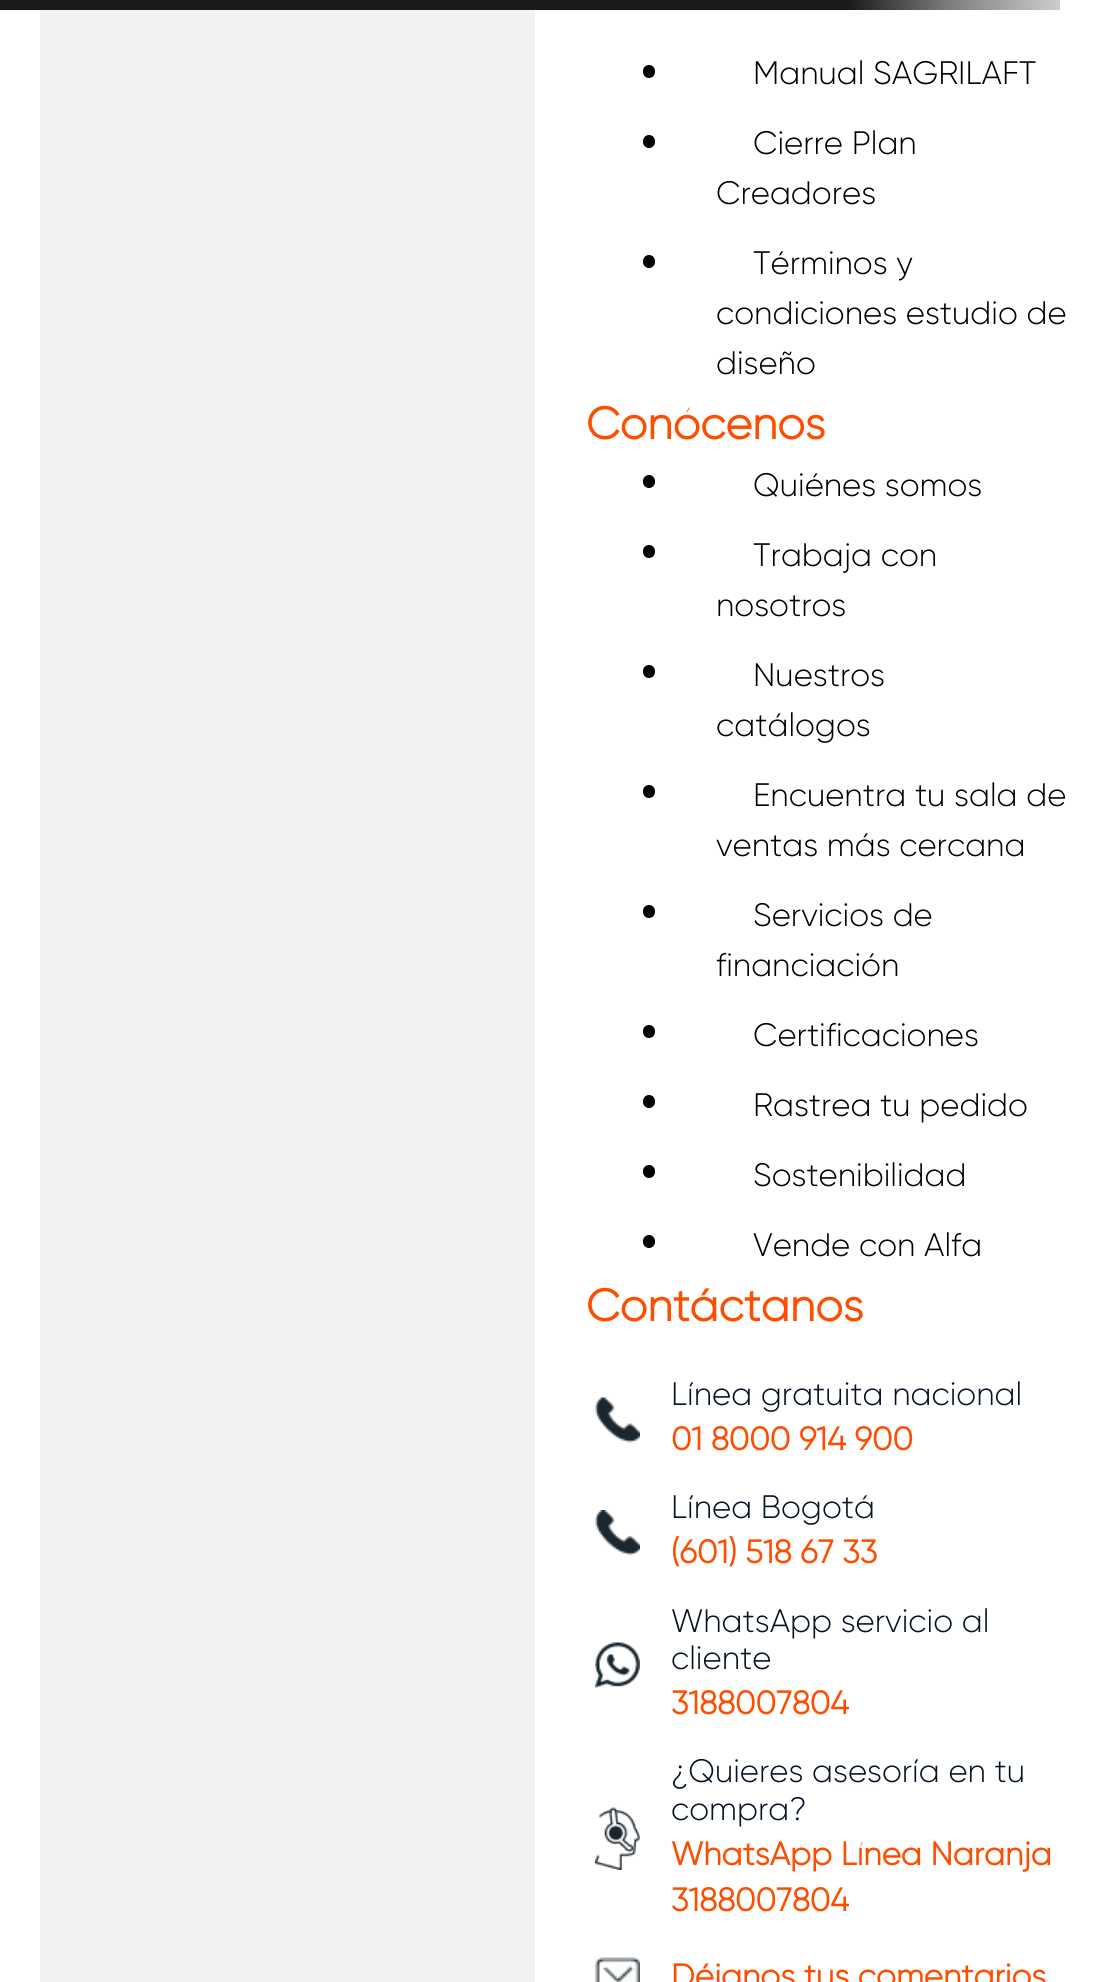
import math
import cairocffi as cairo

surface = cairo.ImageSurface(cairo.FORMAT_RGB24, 1113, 1982)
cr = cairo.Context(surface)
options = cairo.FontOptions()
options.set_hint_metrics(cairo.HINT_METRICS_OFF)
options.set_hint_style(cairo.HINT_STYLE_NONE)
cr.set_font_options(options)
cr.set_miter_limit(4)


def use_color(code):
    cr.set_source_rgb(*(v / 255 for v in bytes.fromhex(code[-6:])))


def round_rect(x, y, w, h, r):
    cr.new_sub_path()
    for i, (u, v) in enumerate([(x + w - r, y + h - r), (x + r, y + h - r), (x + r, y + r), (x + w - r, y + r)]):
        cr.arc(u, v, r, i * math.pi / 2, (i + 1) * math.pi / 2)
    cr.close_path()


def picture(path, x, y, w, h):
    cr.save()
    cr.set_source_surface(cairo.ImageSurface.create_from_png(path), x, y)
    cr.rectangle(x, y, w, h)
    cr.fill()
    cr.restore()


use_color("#ffffff")
cr.paint()
gradient = cairo.LinearGradient(0, 5, 1059, 5)
gradient.add_color_stop_rgba(0.8, 0.102, 0.102, 0.102, 1)
gradient.add_color_stop_rgba(0.9, 0.502, 0.502, 0.502, 1)
gradient.add_color_stop_rgba(1, 0.8, 0.8, 0.8, 1)
cr.set_source(gradient)
cr.rectangle(0, 0, 1060, 10)
cr.fill()
use_color("#f2f2f2")
cr.rectangle(40, 10, 495, 1972)
cr.fill()
use_color("#000000")
round_rect(643, 65, 12, 13, 6)
cr.fill()
cr.select_font_face("Gilroy Light")
cr.set_font_size(32.5)
cr.move_to(753, 84)
cr.show_text("Manual SAGRILAFT")
round_rect(643, 135, 12, 13, 6)
cr.fill()
cr.move_to(753, 154)
cr.show_text("Cierre Plan")
cr.move_to(716, 204)
cr.show_text("Creadores")
round_rect(643, 255, 12, 13, 6)
cr.fill()
cr.move_to(753, 274)
cr.show_text("Términos y")
cr.move_to(716, 324)
cr.show_text("condiciones estudio de")
cr.move_to(716, 374)
cr.show_text("diseño")
cr.select_font_face("Gilroy", cairo.FONT_SLANT_NORMAL, cairo.FONT_WEIGHT_BOLD)
cr.set_font_size(45)
use_color("#ff4d00")
cr.move_to(586, 439)
cr.show_text("Conócenos")
use_color("#000000")
round_rect(643, 475, 12, 13, 6)
cr.fill()
cr.select_font_face("Gilroy Light")
cr.set_font_size(32.5)
cr.move_to(753, 496)
cr.show_text("Quiénes somos")
round_rect(643, 545, 12, 13, 6)
cr.fill()
cr.move_to(753, 566)
cr.show_text("Trabaja con")
cr.move_to(716, 616)
cr.show_text("nosotros")
round_rect(643, 665, 12, 13, 6)
cr.fill()
cr.move_to(753, 686)
cr.show_text("Nuestros")
cr.move_to(716, 736)
cr.show_text("catálogos")
round_rect(643, 785, 12, 13, 6)
cr.fill()
cr.move_to(753, 806)
cr.show_text("Encuentra tu sala de")
cr.move_to(716, 856)
cr.show_text("ventas más cercana")
round_rect(643, 905, 12, 13, 6)
cr.fill()
cr.move_to(753, 926)
cr.show_text("Servicios de")
cr.move_to(716, 976)
cr.show_text("financiación")
round_rect(643, 1025, 12, 13, 6)
cr.fill()
cr.move_to(753, 1046)
cr.show_text("Certificaciones")
round_rect(643, 1095, 12, 13, 6)
cr.fill()
cr.move_to(753, 1116)
cr.show_text("Rastrea tu pedido")
round_rect(643, 1165, 12, 13, 6)
cr.fill()
cr.move_to(753, 1186)
cr.show_text("Sostenibilidad")
round_rect(643, 1235, 12, 13, 6)
cr.fill()
cr.move_to(753, 1256)
cr.show_text("Vende con Alfa")
cr.select_font_face("Gilroy", cairo.FONT_SLANT_NORMAL, cairo.FONT_WEIGHT_BOLD)
cr.set_font_size(45)
use_color("#ff4d00")
cr.move_to(586, 1321)
cr.show_text("Contáctanos")
picture("img1.png", 595, 1397, 45, 46)
cr.select_font_face("Gilroy Light")
cr.set_font_size(32.5)
use_color("#051224")
cr.move_to(671, 1405)
cr.show_text("Línea gratuita nacional")
cr.select_font_face("Gilroy", cairo.FONT_SLANT_NORMAL, cairo.FONT_WEIGHT_BOLD)
use_color("#ff4d00")
cr.move_to(671, 1450)
cr.show_text("01 8000 914 900")
picture("img2.png", 595, 1510, 45, 45)
cr.select_font_face("Gilroy Light")
use_color("#051224")
cr.move_to(671, 1518)
cr.show_text("Línea Bogotá")
cr.select_font_face("Gilroy", cairo.FONT_SLANT_NORMAL, cairo.FONT_WEIGHT_BOLD)
use_color("#ff4d00")
cr.move_to(671, 1563)
cr.show_text("(601) 518 67 33")
picture("img3.png", 595, 1642, 45, 46)
cr.select_font_face("Gilroy Light")
use_color("#051224")
cr.move_to(671, 1632)
cr.show_text("WhatsApp servicio al")
cr.move_to(671, 1669)
cr.show_text("cliente")
cr.select_font_face("Gilroy", cairo.FONT_SLANT_NORMAL, cairo.FONT_WEIGHT_BOLD)
use_color("#ff4d00")
cr.move_to(671, 1714)
cr.show_text("3188007804")
picture("img4.png", 595, 1807, 45, 63)
cr.select_font_face("Gilroy Light")
use_color("#051224")
cr.move_to(671, 1782)
cr.show_text("¿Quieres asesoría en tu")
cr.move_to(671, 1820)
cr.show_text("compra?")
cr.select_font_face("Gilroy", cairo.FONT_SLANT_NORMAL, cairo.FONT_WEIGHT_BOLD)
use_color("#ff4d00")
cr.move_to(671, 1865)
cr.show_text("WhatsApp Línea Naranja")
cr.move_to(671, 1911)
cr.show_text("3188007804")
picture("img5.png", 595, 1957, 45, 25)
cr.move_to(671, 1987)
cr.show_text("Déjanos tus comentarios")
surface.write_to_png("result.png")
